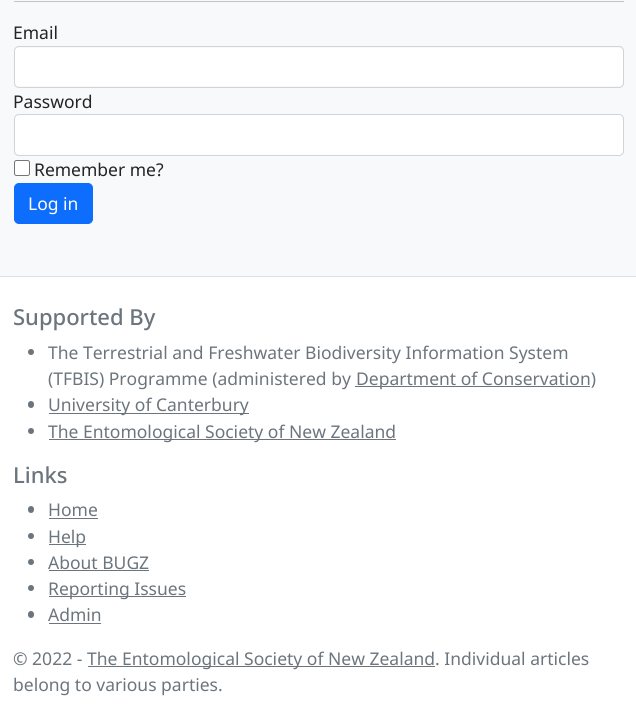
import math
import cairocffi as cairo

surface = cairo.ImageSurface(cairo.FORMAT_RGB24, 636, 723)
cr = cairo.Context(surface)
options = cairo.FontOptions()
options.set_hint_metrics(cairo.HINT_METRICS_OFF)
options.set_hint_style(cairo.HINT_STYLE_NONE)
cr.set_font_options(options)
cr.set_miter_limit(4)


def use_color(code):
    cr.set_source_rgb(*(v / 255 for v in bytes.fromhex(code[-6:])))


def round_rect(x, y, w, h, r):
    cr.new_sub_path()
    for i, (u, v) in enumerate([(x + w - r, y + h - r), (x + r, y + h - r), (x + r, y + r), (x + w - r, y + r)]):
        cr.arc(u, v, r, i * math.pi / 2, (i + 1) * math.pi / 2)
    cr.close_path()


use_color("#f8f9fa")
cr.paint()
use_color("#c2c4c6")
cr.rectangle(14, 1, 610, 1)
cr.fill()
cr.select_font_face("Noto Sans")
cr.set_font_size(17.5)
use_color("#212529")
cr.move_to(13, 39)
cr.show_text("Email")
use_color("#ffffff")
round_rect(15, 48, 608, 38, 3)
cr.fill()
round_rect(14.5, 46.5, 609, 41, 4.5)
use_color("#ced4da")
cr.set_line_width(1)
cr.stroke()
use_color("#212529")
cr.move_to(13, 108)
cr.show_text("Password")
use_color("#ffffff")
round_rect(15, 115, 608, 40, 3)
cr.fill()
round_rect(14.5, 114.5, 609, 41, 4.5)
use_color("#ced4da")
cr.stroke()
use_color("#ffffff")
round_rect(14.5, 160.5, 15, 15, 2)
cr.fill_preserve()
use_color("#767676")
cr.stroke()
use_color("#212529")
cr.move_to(34, 176)
cr.show_text("Remember me?")
use_color("#0d6efd")
round_rect(14.5, 183.5, 78, 40, 4.5)
cr.fill_preserve()
cr.stroke()
use_color("#ffffff")
cr.move_to(28, 210)
cr.show_text("Log in")
cr.rectangle(0, 277, 636, 446)
cr.fill()
use_color("#dee2e6")
cr.rectangle(0, 276, 636, 1)
cr.fill()
cr.select_font_face("Noto Sans Medium")
cr.set_font_size(22)
use_color("#6c757d")
cr.move_to(13, 325)
cr.show_text("Supported By")
cr.new_path()
cr.arc(31, 352, 3, 0, 2 * math.pi)
cr.fill()
cr.select_font_face("Noto Sans")
cr.set_font_size(17.5)
cr.move_to(48, 359)
cr.show_text("The Terrestrial and Freshwater Biodiversity Information System")
cr.move_to(48, 385)
cr.show_text("(TFBIS) Programme (administered by")
cr.rectangle(355, 386, 235, 1)
cr.fill()
cr.move_to(356, 385)
cr.show_text("Department of Conservation)")
round_rect(28, 401, 6, 7, 3)
cr.fill()
cr.rectangle(49, 413, 200, 1)
cr.fill()
cr.move_to(48, 411)
cr.show_text("University of Canterbury")
cr.new_path()
cr.arc(31, 431, 3, 0, 2 * math.pi)
cr.fill()
cr.rectangle(49, 439, 347, 1)
cr.fill()
cr.move_to(48, 438)
cr.show_text("The Entomological Society of New Zealand")
cr.select_font_face("Noto Sans Medium")
cr.set_font_size(22)
cr.move_to(13, 483)
cr.show_text("Links")
round_rect(28, 506, 6, 7, 3)
cr.fill()
cr.select_font_face("Noto Sans")
cr.set_font_size(17.5)
cr.move_to(48, 516)
cr.show_text("Home")
cr.rectangle(49, 518, 49, 1)
cr.fill()
cr.arc(31, 536, 3, 0, 2 * math.pi)
cr.fill()
cr.rectangle(49, 544, 37, 1)
cr.fill()
cr.move_to(48, 543)
cr.show_text("Help")
cr.new_path()
cr.arc(31, 562, 3, 0, 2 * math.pi)
cr.fill()
cr.move_to(48, 569)
cr.show_text("About BUGZ")
cr.rectangle(49, 570, 100, 1)
cr.fill()
cr.arc(31, 588, 3, 0, 2 * math.pi)
cr.fill()
cr.rectangle(49, 596, 137, 1)
cr.fill()
cr.move_to(48, 595)
cr.show_text("Reporting Issues")
round_rect(28, 611, 6, 7, 3)
cr.fill()
cr.move_to(48, 621)
cr.show_text("Admin")
cr.rectangle(49, 623, 52, 1)
cr.fill()
cr.move_to(13, 665)
cr.show_text("© 2022 -")
cr.rectangle(88, 666, 347, 1)
cr.fill()
cr.move_to(87, 665)
cr.show_text("The Entomological Society of New Zealand. Individual articles")
cr.move_to(13, 691)
cr.show_text("belong to various parties.")
surface.write_to_png("result.png")
